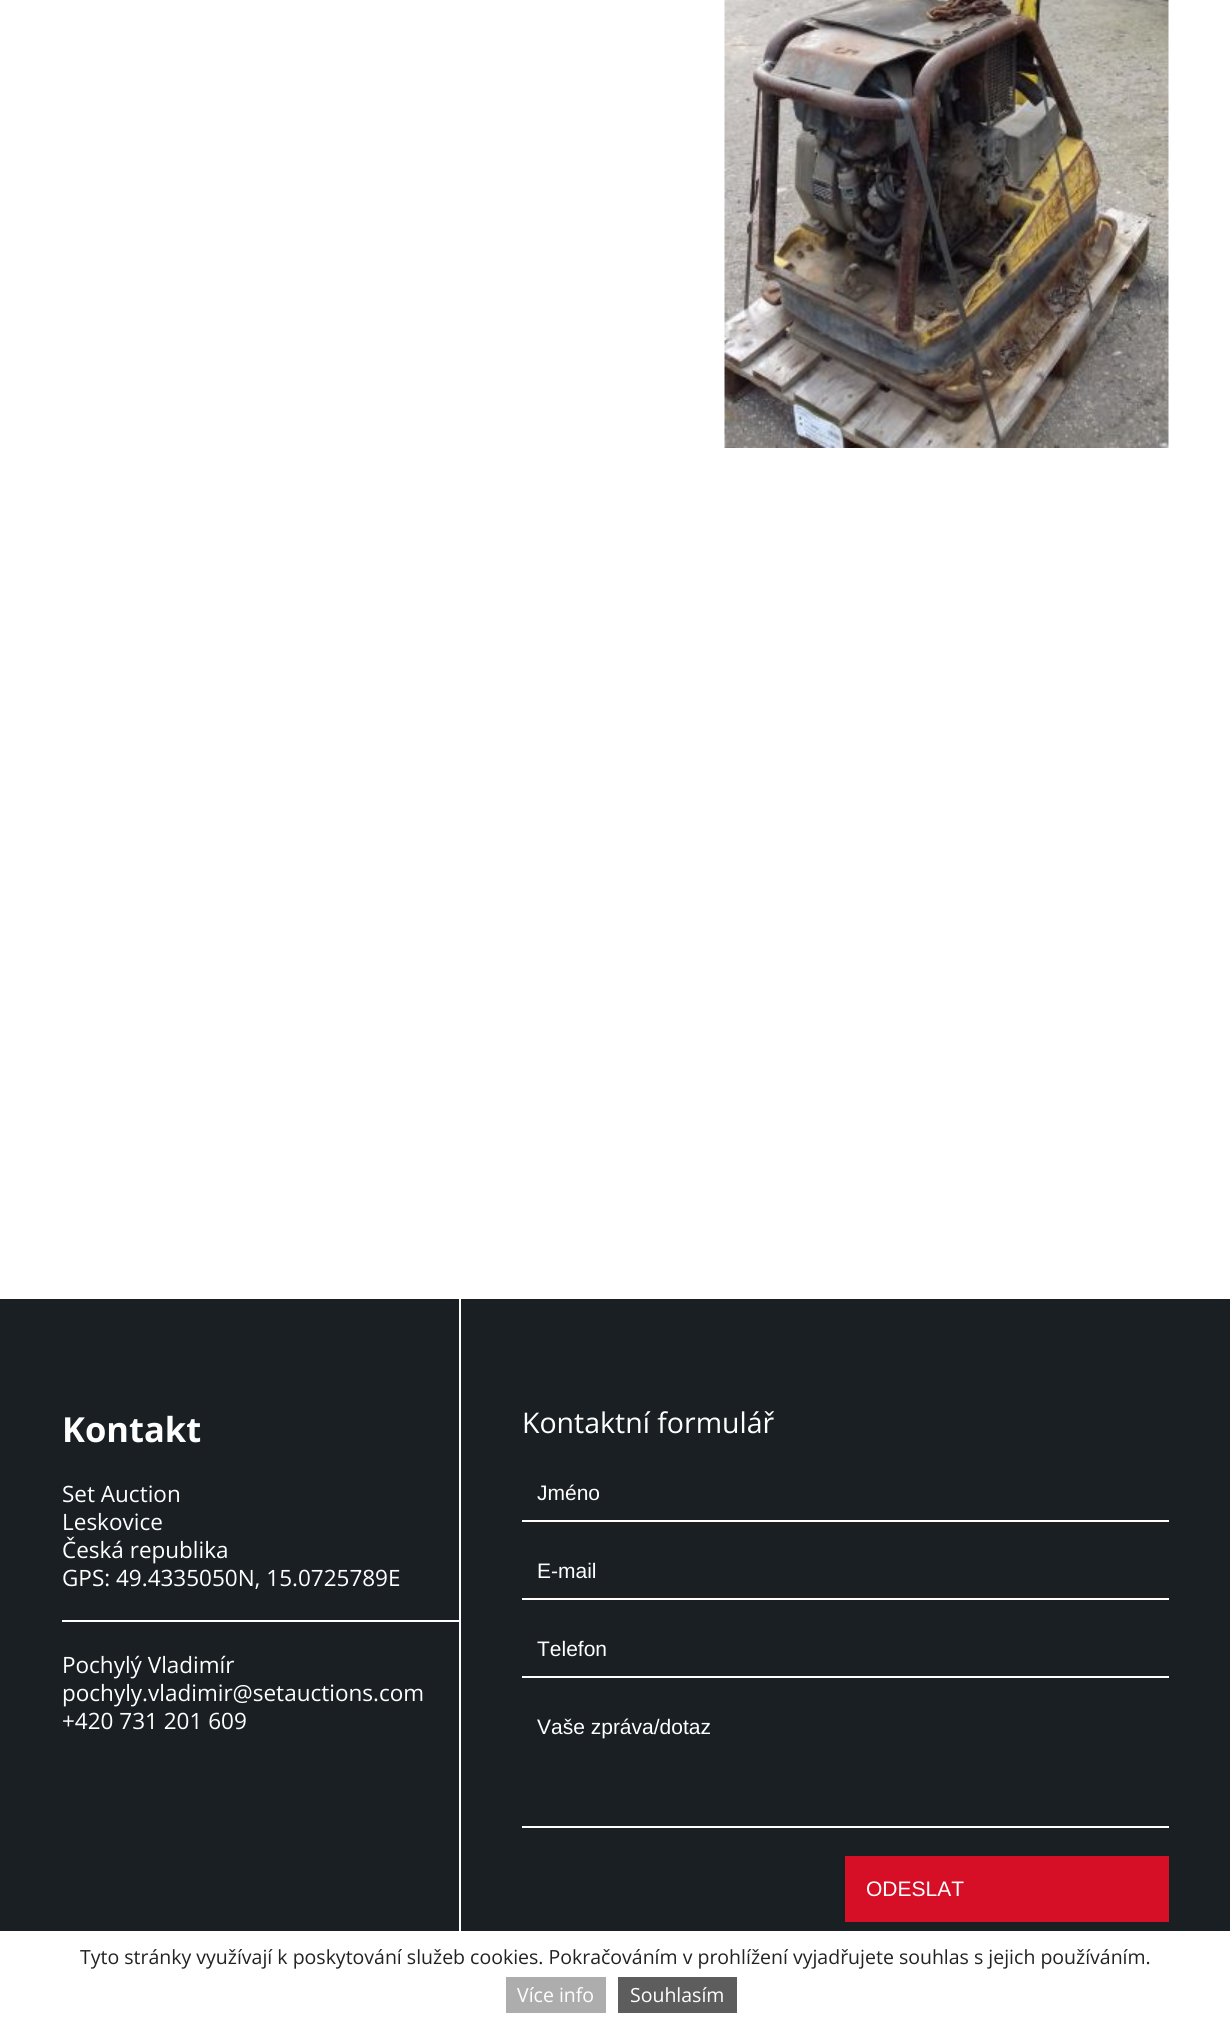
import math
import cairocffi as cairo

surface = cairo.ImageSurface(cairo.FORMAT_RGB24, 1230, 2028)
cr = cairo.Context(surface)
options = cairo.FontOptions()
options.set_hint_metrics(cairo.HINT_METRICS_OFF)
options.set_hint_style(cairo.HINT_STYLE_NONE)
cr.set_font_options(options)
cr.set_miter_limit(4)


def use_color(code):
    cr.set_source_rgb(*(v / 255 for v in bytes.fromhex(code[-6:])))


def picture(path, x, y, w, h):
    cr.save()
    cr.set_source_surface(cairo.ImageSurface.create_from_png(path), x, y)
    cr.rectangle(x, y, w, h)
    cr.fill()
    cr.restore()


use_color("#ffffff")
cr.paint()
picture("img1.png", 724, 0, 445, 448)
use_color("#1a1f23")
cr.rectangle(0, 1299, 1230, 632)
cr.fill()
cr.select_font_face("Open Sans", cairo.FONT_SLANT_NORMAL, cairo.FONT_WEIGHT_BOLD)
cr.set_font_size(34.5)
use_color("#ffffff")
cr.move_to(62, 1442)
cr.show_text("Kontakt")
cr.rectangle(62, 1620, 399, 2)
cr.fill()
cr.rectangle(459, 1299, 2, 632)
cr.fill()
cr.select_font_face("Open Sans")
cr.set_font_size(22.5)
cr.move_to(62, 1502)
cr.show_text("Set Auction")
cr.move_to(62, 1530)
cr.show_text("Leskovice")
cr.move_to(62, 1558)
cr.show_text("Česká republika")
cr.move_to(62, 1586)
cr.show_text("GPS: 49.4335050N, 15.0725789E")
cr.move_to(62, 1673)
cr.show_text("Pochylý Vladimír")
cr.move_to(62, 1701)
cr.show_text("pochyly.vladimir@setauctions.com")
cr.move_to(62, 1729)
cr.show_text("+420 731 201 609")
cr.set_font_size(28.5)
cr.move_to(522, 1433)
cr.show_text("Kontaktní formulář")
cr.rectangle(522, 1520, 647, 2)
cr.fill()
cr.select_font_face("Liberation Sans")
cr.set_font_size(21)
cr.move_to(537, 1500)
cr.show_text("Jméno")
cr.rectangle(522, 1598, 647, 2)
cr.fill()
cr.move_to(537, 1578)
cr.show_text("E-mail")
cr.rectangle(522, 1676, 647, 2)
cr.fill()
cr.move_to(537, 1656)
cr.show_text("Telefon")
cr.rectangle(522, 1826, 647, 2)
cr.fill()
cr.move_to(537, 1734)
cr.show_text("Vaše zpráva/dotaz")
use_color("#d60f27")
cr.rectangle(845, 1856, 324, 66)
cr.fill()
use_color("#ffffff")
cr.move_to(866, 1896)
cr.show_text("ODESLAT")
cr.select_font_face("Open Sans")
cr.set_font_size(19.5)
use_color("#222222")
cr.move_to(80, 1964)
cr.show_text("Tyto stránky využívají k poskytování služeb cookies. Pokračováním v prohlížení vyjadřujete souhlas s jejich používáním.")
use_color("#adadad")
cr.rectangle(506, 1977, 100, 36)
cr.fill()
use_color("#ffffff")
cr.move_to(517, 2002)
cr.show_text("Více info")
use_color("#5d5d5d")
cr.rectangle(618, 1977, 119, 36)
cr.fill()
use_color("#ffffff")
cr.move_to(630, 2002)
cr.show_text("Souhlasím")
surface.write_to_png("result.png")
